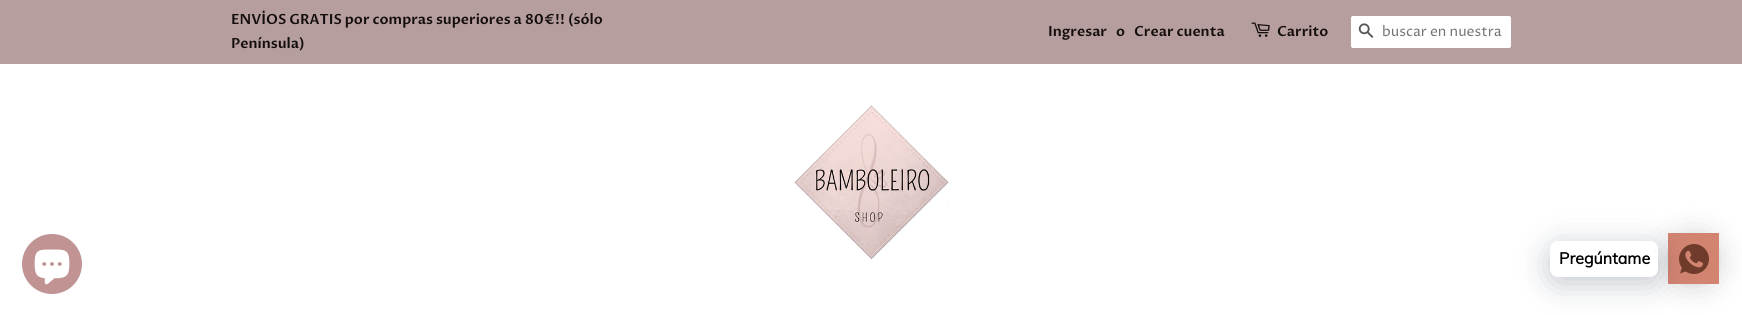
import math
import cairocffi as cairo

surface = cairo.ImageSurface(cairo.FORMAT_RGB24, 1742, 315)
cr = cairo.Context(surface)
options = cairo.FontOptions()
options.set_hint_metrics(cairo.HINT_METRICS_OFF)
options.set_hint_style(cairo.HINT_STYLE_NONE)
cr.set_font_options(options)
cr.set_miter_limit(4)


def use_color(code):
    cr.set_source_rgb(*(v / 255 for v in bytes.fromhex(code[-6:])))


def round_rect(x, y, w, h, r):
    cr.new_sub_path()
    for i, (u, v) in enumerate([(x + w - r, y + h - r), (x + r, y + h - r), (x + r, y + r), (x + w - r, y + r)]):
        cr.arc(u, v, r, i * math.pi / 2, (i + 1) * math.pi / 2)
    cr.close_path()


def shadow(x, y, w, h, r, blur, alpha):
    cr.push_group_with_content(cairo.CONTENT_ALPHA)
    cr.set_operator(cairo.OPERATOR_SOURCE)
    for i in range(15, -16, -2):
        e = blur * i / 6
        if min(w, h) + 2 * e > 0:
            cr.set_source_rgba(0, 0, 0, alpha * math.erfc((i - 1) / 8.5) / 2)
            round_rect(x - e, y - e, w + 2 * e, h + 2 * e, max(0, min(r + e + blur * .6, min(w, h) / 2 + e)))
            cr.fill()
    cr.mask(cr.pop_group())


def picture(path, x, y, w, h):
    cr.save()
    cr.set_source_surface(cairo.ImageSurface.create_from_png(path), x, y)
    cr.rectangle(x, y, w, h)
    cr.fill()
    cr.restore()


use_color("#ffffff")
cr.paint()
use_color("#b79e9e")
cr.rectangle(0, 0, 1742, 64)
cr.fill()
cr.select_font_face("Proza Libre SemiBold")
cr.set_font_size(14)
use_color("#130d0d")
cr.move_to(231, 24)
cr.show_text("ENVÍOS GRATIS por compras superiores a 80€!! (sólo")
cr.move_to(231, 48)
cr.show_text("Península)")
cr.move_to(1048, 36)
cr.show_text("Ingresar")
cr.move_to(1116, 36)
cr.show_text("o")
cr.move_to(1134, 36)
cr.show_text("Crear cuenta")
picture("img1.png", 1251, 22, 19, 15)
cr.move_to(1277, 36)
cr.show_text("Carrito")
use_color("#ffffff")
round_rect(1351, 16, 160, 32, 2)
cr.fill()
picture("img2.png", 1358, 23, 16, 15)
cr.select_font_face("Proza Libre")
use_color("#757575")
cr.move_to(1382, 36)
cr.show_text("buscar en nuestra")
picture("img3.png", 794, 105, 155, 154)
use_color("#c19393")
cr.arc(52, 264, 30, 0, 2 * math.pi)
cr.fill()
picture("img4.png", 34, 249, 36, 36)
use_color("#000000")
shadow(1668, 235, 51, 51, 25.5, 16, 0.16)
shadow(1668, 234, 51, 51, 25.5, 3, 0.06)
use_color("#d28471")
cr.rectangle(1668, 233, 51, 51)
cr.fill()
use_color("#00122e")
shadow(1550, 247, 108, 36, 8, 16, 0.24)
use_color("#ffffff")
round_rect(1550, 241, 108, 36, 8)
cr.fill()
cr.select_font_face("Muli", cairo.FONT_SLANT_NORMAL, cairo.FONT_WEIGHT_BOLD)
cr.set_font_size(16)
use_color("#000000")
cr.move_to(1559, 264)
cr.show_text("Pregúntame")
picture("img5.png", 1679, 244, 30, 30)
surface.write_to_png("result.png")
